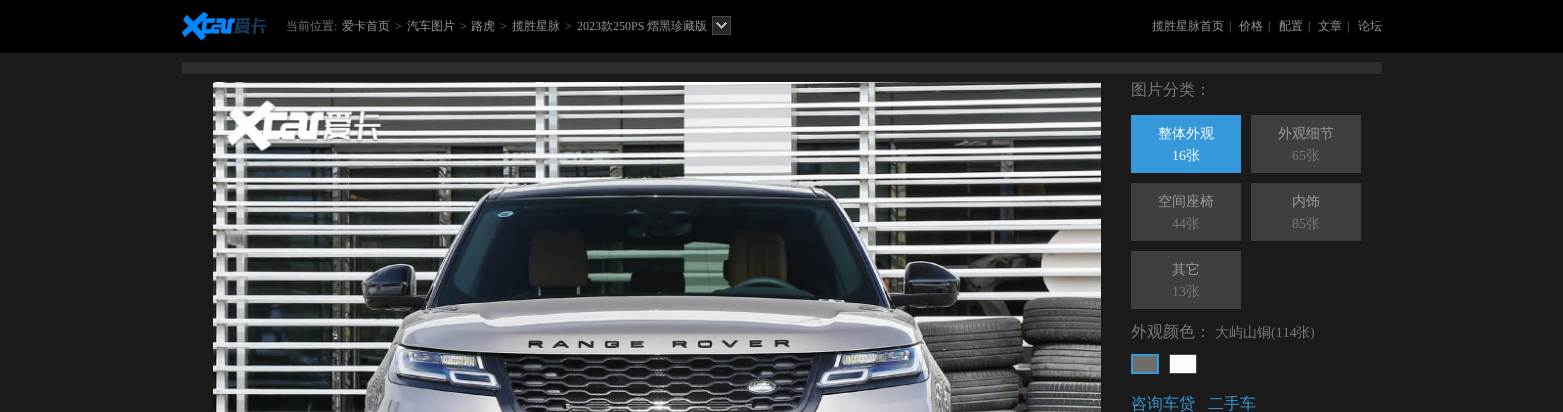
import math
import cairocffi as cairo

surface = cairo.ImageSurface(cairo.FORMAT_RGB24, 1563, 412)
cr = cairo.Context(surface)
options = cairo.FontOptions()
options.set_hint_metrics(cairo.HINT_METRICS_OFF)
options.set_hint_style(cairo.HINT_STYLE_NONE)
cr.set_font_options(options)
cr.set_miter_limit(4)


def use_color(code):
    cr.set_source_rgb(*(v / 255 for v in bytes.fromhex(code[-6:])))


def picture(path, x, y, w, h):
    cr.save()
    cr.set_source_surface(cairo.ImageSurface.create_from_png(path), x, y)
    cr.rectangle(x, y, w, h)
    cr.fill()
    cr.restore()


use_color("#1b1b1b")
cr.paint()
use_color("#000000")
cr.rectangle(0, 0, 1563, 53)
cr.fill()
picture("img1.png", 182, 12, 84, 28)
cr.select_font_face("WenQuanYi Zen Hei Medium")
cr.set_font_size(12)
use_color("#777777")
cr.move_to(286, 30)
cr.show_text("当前位置")
cr.select_font_face("Liberation Serif")
cr.move_to(334, 30)
cr.show_text(":")
cr.select_font_face("WenQuanYi Zen Hei Medium")
use_color("#999999")
cr.move_to(342, 30)
cr.show_text("爱卡首页")
cr.select_font_face("Liberation Serif")
use_color("#777777")
cr.move_to(395, 30)
cr.show_text(">")
cr.select_font_face("WenQuanYi Zen Hei Medium")
use_color("#999999")
cr.move_to(407, 30)
cr.show_text("汽车图片")
cr.select_font_face("Liberation Serif")
use_color("#777777")
cr.move_to(460, 30)
cr.show_text(">")
cr.select_font_face("WenQuanYi Zen Hei Medium")
use_color("#999999")
cr.move_to(471, 30)
cr.show_text("路虎")
cr.select_font_face("Liberation Serif")
use_color("#777777")
cr.move_to(500, 30)
cr.show_text(">")
cr.select_font_face("WenQuanYi Zen Hei Medium")
use_color("#999999")
cr.move_to(512, 30)
cr.show_text("揽胜星脉")
cr.select_font_face("Liberation Serif")
use_color("#777777")
cr.move_to(565, 30)
cr.show_text(">")
use_color("#999999")
cr.move_to(577, 30)
cr.show_text("2023")
cr.select_font_face("WenQuanYi Zen Hei Medium")
cr.move_to(601, 30)
cr.show_text("款")
cr.select_font_face("Liberation Serif")
cr.move_to(613, 30)
cr.show_text("250PS")
cr.select_font_face("WenQuanYi Zen Hei Medium")
cr.move_to(647, 30)
cr.show_text("熠黑珍藏版")
picture("img2.png", 712, 16, 19, 19)
cr.move_to(1152, 30)
cr.show_text("揽胜星脉首页")
cr.select_font_face("Liberation Serif")
use_color("#777777")
cr.move_to(1229, 30)
cr.show_text("|")
cr.select_font_face("WenQuanYi Zen Hei Medium")
use_color("#999999")
cr.move_to(1239, 30)
cr.show_text("价格")
cr.select_font_face("Liberation Serif")
use_color("#777777")
cr.move_to(1268, 30)
cr.show_text("|")
cr.select_font_face("WenQuanYi Zen Hei Medium")
use_color("#999999")
cr.move_to(1279, 30)
cr.show_text("配置")
cr.select_font_face("Liberation Serif")
use_color("#777777")
cr.move_to(1308, 30)
cr.show_text("|")
cr.select_font_face("WenQuanYi Zen Hei Medium")
use_color("#999999")
cr.move_to(1318, 30)
cr.show_text("文章")
cr.select_font_face("Liberation Serif")
use_color("#777777")
cr.move_to(1347, 30)
cr.show_text("|")
cr.select_font_face("WenQuanYi Zen Hei Medium")
use_color("#999999")
cr.move_to(1358, 30)
cr.show_text("论坛")
use_color("#2e2e2e")
cr.rectangle(182, 62, 1200, 12)
cr.fill()
picture("img3.png", 213, 82, 888, 330)
cr.set_font_size(16)
use_color("#777777")
cr.move_to(1131, 95)
cr.show_text("图片分类：")
use_color("#3498db")
cr.rectangle(1131, 115, 110, 58)
cr.fill()
cr.set_font_size(14)
use_color("#ffffff")
cr.move_to(1158, 138)
cr.show_text("整体外观")
cr.select_font_face("Liberation Serif")
cr.move_to(1172, 160)
cr.show_text("16")
cr.select_font_face("WenQuanYi Zen Hei Medium")
cr.move_to(1186, 160)
cr.show_text("张")
use_color("#3f3f3f")
cr.rectangle(1251, 115, 110, 58)
cr.fill()
use_color("#999999")
cr.move_to(1278, 138)
cr.show_text("外观细节")
cr.select_font_face("Liberation Serif")
use_color("#777777")
cr.move_to(1292, 160)
cr.show_text("65")
cr.select_font_face("WenQuanYi Zen Hei Medium")
cr.move_to(1306, 160)
cr.show_text("张")
use_color("#3f3f3f")
cr.rectangle(1131, 183, 110, 58)
cr.fill()
use_color("#999999")
cr.move_to(1158, 206)
cr.show_text("空间座椅")
cr.select_font_face("Liberation Serif")
use_color("#777777")
cr.move_to(1172, 228)
cr.show_text("44")
cr.select_font_face("WenQuanYi Zen Hei Medium")
cr.move_to(1186, 228)
cr.show_text("张")
use_color("#3f3f3f")
cr.rectangle(1251, 183, 110, 58)
cr.fill()
use_color("#999999")
cr.move_to(1292, 206)
cr.show_text("内饰")
cr.select_font_face("Liberation Serif")
use_color("#777777")
cr.move_to(1292, 228)
cr.show_text("85")
cr.select_font_face("WenQuanYi Zen Hei Medium")
cr.move_to(1306, 228)
cr.show_text("张")
use_color("#3f3f3f")
cr.rectangle(1131, 251, 110, 58)
cr.fill()
use_color("#999999")
cr.move_to(1172, 274)
cr.show_text("其它")
cr.select_font_face("Liberation Serif")
use_color("#777777")
cr.move_to(1172, 296)
cr.show_text("13")
cr.select_font_face("WenQuanYi Zen Hei Medium")
cr.move_to(1186, 296)
cr.show_text("张")
cr.set_font_size(16)
cr.move_to(1131, 337)
cr.show_text("外观颜色：")
cr.set_font_size(14)
cr.move_to(1215, 337)
cr.show_text("大屿山铜")
cr.select_font_face("Liberation Serif")
cr.move_to(1271, 337)
cr.show_text("(114")
cr.select_font_face("WenQuanYi Zen Hei Medium")
cr.move_to(1296, 337)
cr.show_text("张")
cr.select_font_face("Liberation Serif")
cr.move_to(1310, 337)
cr.show_text(")")
use_color("#6d6d6b")
cr.rectangle(1132, 355, 26, 18)
cr.fill_preserve()
use_color("#3498db")
cr.stroke()
use_color("#fbfcfe")
cr.rectangle(1169.5, 354.5, 27, 19)
cr.fill_preserve()
use_color("#474747")
cr.set_line_width(1)
cr.stroke()
cr.select_font_face("WenQuanYi Zen Hei Medium")
cr.set_font_size(16)
use_color("#3498db")
cr.move_to(1131, 409)
cr.show_text("咨询车贷")
cr.move_to(1208, 409)
cr.show_text("二手车")
surface.write_to_png("result.png")
